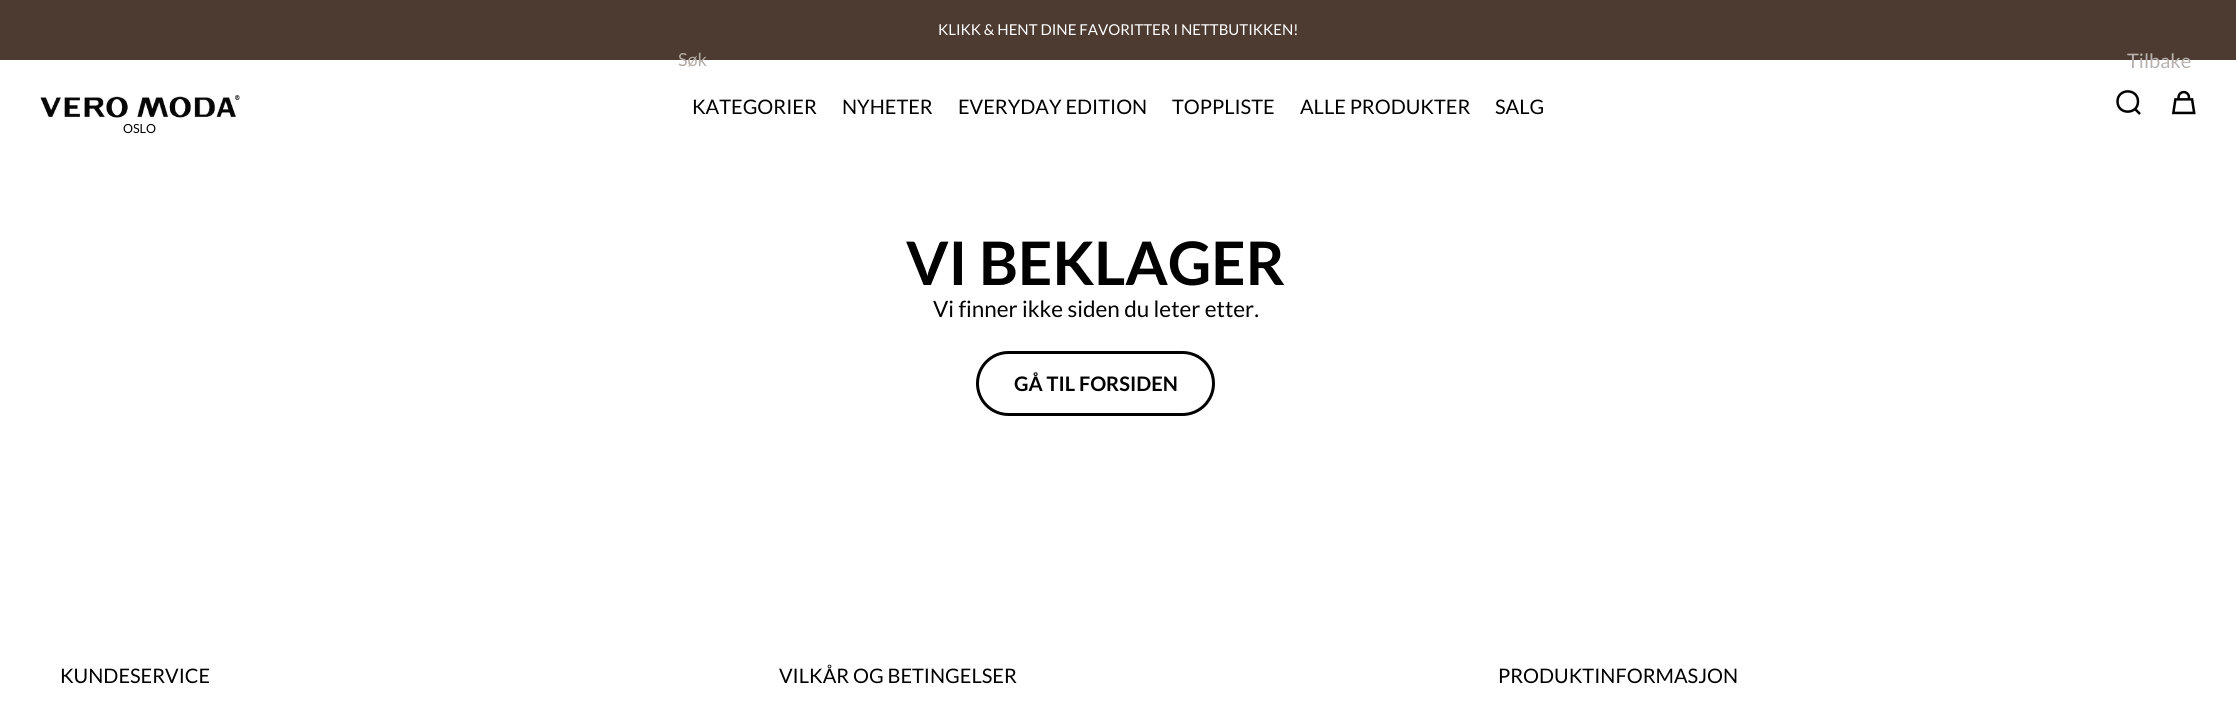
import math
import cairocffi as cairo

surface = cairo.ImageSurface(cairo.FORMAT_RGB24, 2236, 722)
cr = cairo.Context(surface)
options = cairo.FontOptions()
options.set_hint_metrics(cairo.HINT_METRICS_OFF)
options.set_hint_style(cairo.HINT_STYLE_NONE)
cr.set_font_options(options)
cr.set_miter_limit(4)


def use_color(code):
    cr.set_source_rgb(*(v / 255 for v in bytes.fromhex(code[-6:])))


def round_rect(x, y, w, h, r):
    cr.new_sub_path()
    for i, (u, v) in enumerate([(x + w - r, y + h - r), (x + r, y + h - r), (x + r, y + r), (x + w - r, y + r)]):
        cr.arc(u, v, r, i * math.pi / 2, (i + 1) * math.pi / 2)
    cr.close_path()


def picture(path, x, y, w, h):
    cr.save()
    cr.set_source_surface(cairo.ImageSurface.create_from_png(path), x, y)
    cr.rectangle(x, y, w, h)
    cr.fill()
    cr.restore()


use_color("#ffffff")
cr.paint()
use_color("#4d3a30")
cr.rectangle(0, 0, 2236, 60)
cr.fill()
cr.select_font_face("Lato")
cr.set_font_size(15)
use_color("#ffffff")
cr.move_to(938, 35)
cr.show_text("KLIKK & HENT DINE FAVORITTER I NETTBUTIKKEN!")
cr.set_font_size(18)
use_color("#b2aaa5")
cr.move_to(678, 66)
cr.show_text("Søk")
cr.set_font_size(20)
use_color("#b8b1ad")
cr.move_to(2127, 68)
cr.show_text("Tilbake")
use_color("#000000")
cr.move_to(692, 114)
cr.show_text("KATEGORIER")
cr.move_to(842, 114)
cr.show_text("NYHETER")
cr.move_to(958, 114)
cr.show_text("EVERYDAY EDITION")
cr.move_to(1172, 114)
cr.show_text("TOPPLISTE")
cr.move_to(1300, 114)
cr.show_text("ALLE PRODUKTER")
cr.move_to(1495, 114)
cr.show_text("SALG")
cr.save()
cr.new_path()
cr.move_to(2116, 90)
cr.line_to(2141, 90)
cr.line_to(2141, 115)
cr.line_to(2116, 115)
cr.close_path()
cr.clip()
cr.new_path()
cr.move_to(2117.5, 101.5)
cr.curve_to(2117.5, 115, 2138, 115, 2138, 101.5)
cr.curve_to(2138, 88, 2117.5, 88, 2117.5, 101.5)
cr.close_path()
cr.move_to(2135, 109)
cr.line_to(2140, 114)
cr.set_line_width(2.5)
cr.stroke()
cr.restore()
picture("img1.png", 2171, 90, 25, 25)
picture("img2.png", 40, 95, 200, 23)
cr.set_font_size(12.5)
cr.move_to(123, 133)
cr.show_text("OSLO")
cr.select_font_face("Lato", cairo.FONT_SLANT_NORMAL, cairo.FONT_WEIGHT_BOLD)
cr.set_font_size(60)
cr.move_to(906, 285)
cr.show_text("VI BEKLAGER")
cr.select_font_face("Lato")
cr.set_font_size(22.5)
cr.move_to(933, 317)
cr.show_text("Vi finner ikke siden du leter etter.")
round_rect(977.5, 352.5, 236, 62, 31)
cr.set_line_width(3)
cr.stroke()
cr.select_font_face("Lato", cairo.FONT_SLANT_NORMAL, cairo.FONT_WEIGHT_BOLD)
cr.set_font_size(20)
cr.move_to(1014, 391)
cr.show_text("GÅ TIL FORSIDEN")
cr.select_font_face("Lato")
cr.move_to(60, 683)
cr.show_text("KUNDESERVICE")
cr.move_to(779, 683)
cr.show_text("VILKÅR OG BETINGELSER")
cr.move_to(1498, 683)
cr.show_text("PRODUKTINFORMASJON")
surface.write_to_png("result.png")
